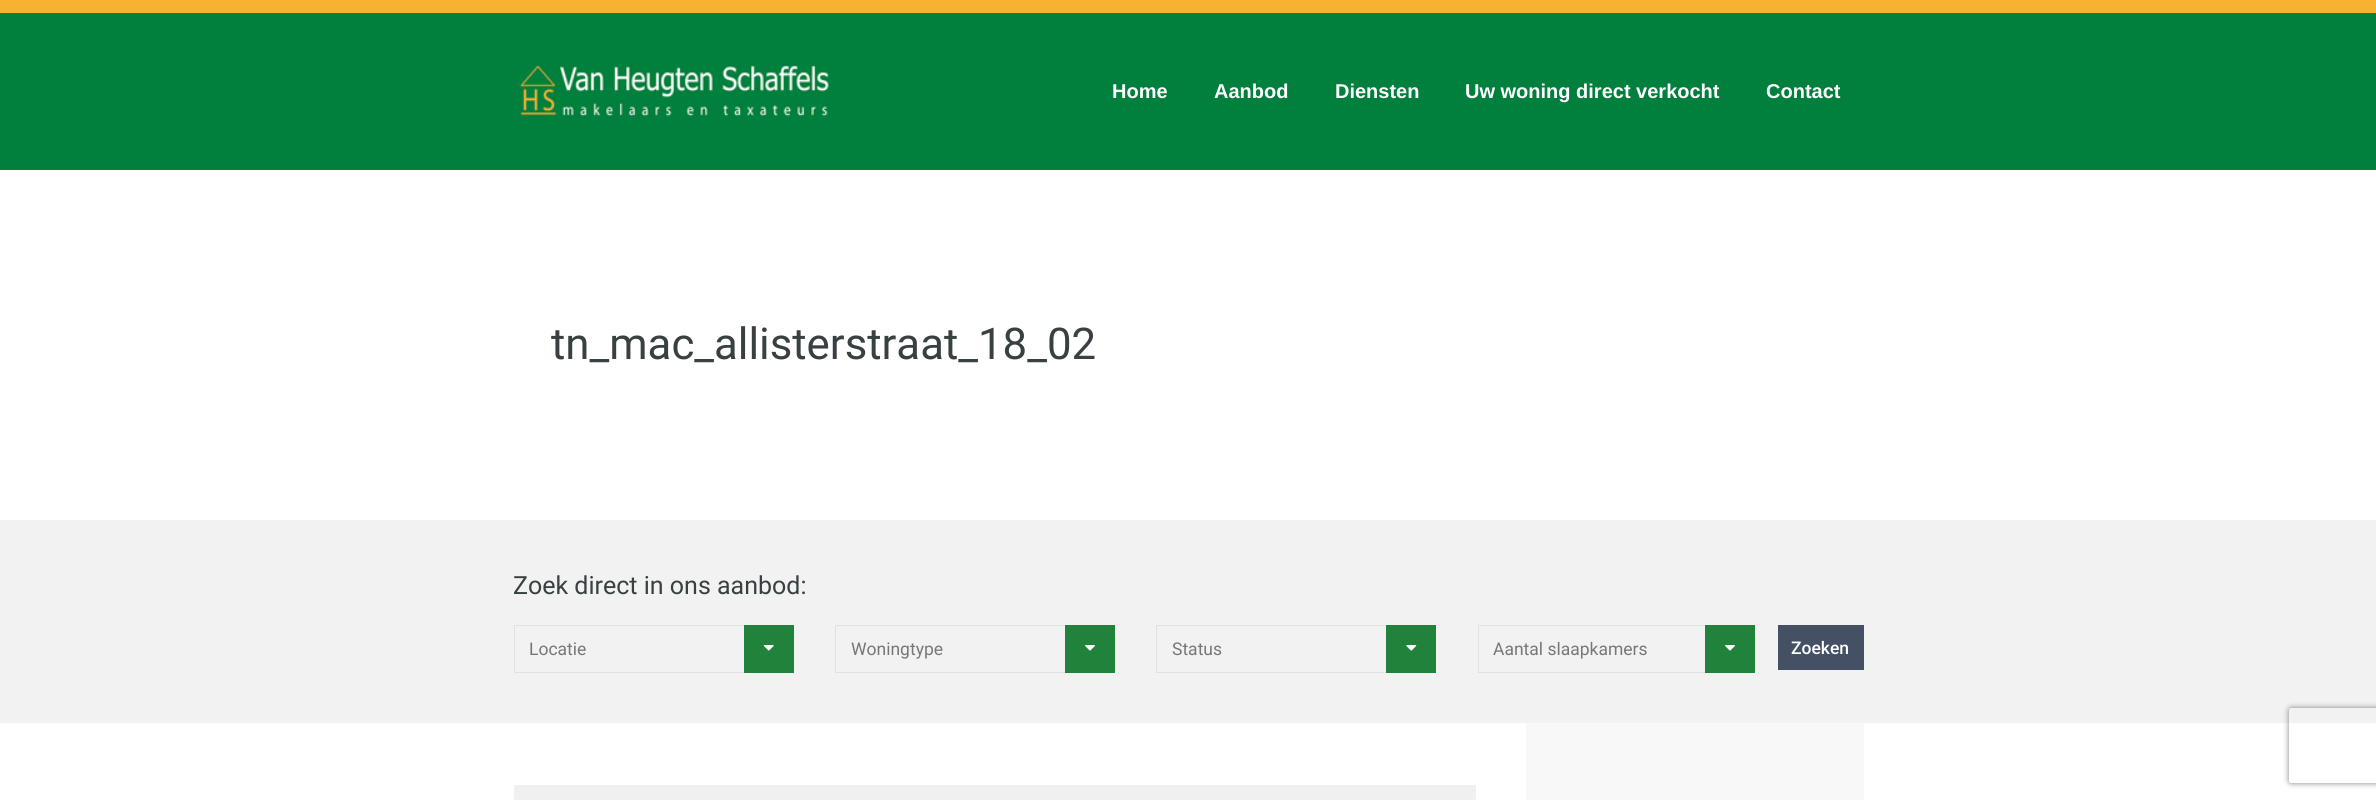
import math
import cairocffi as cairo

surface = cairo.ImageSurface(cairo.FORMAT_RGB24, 2376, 800)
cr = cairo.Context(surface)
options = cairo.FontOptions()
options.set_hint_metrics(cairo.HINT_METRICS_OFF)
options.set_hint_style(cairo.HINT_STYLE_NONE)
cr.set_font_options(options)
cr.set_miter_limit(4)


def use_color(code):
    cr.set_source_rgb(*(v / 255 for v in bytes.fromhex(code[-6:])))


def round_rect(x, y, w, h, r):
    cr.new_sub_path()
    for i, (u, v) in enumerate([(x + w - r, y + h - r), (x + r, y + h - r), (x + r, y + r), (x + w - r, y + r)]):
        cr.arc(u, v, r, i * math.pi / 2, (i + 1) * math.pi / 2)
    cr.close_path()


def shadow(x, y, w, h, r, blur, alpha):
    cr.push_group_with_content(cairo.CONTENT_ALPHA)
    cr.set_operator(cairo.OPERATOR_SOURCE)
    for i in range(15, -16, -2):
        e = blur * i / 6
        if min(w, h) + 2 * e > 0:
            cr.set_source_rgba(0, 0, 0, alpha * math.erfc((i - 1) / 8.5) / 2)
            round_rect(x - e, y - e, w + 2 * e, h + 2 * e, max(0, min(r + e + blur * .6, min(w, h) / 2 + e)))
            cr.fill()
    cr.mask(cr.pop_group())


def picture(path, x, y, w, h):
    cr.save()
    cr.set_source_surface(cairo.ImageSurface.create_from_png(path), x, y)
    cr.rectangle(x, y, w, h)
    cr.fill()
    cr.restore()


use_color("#ffffff")
cr.paint()
use_color("#00803c")
cr.rectangle(0, 13, 2376, 157)
cr.fill()
use_color("#f9b131")
cr.rectangle(0, 0, 2376, 13)
cr.fill()
picture("img1.png", 520, 65, 310, 52)
cr.select_font_face("Liberation Sans", cairo.FONT_SLANT_NORMAL, cairo.FONT_WEIGHT_BOLD)
cr.set_font_size(20)
use_color("#ffffff")
cr.move_to(1112, 98)
cr.show_text("Home")
cr.move_to(1214, 98)
cr.show_text("Aanbod")
cr.move_to(1335, 98)
cr.show_text("Diensten")
cr.move_to(1465, 98)
cr.show_text("Uw woning direct verkocht")
cr.move_to(1766, 98)
cr.show_text("Contact")
cr.select_font_face("Roboto")
cr.set_font_size(43.75)
use_color("#384042")
cr.move_to(551, 359)
cr.show_text("tn_mac_allisterstraat_18_02")
use_color("#f2f2f2")
cr.rectangle(0, 520, 2376, 203)
cr.fill()
cr.set_font_size(25)
use_color("#384042")
cr.move_to(513, 594)
cr.show_text("Zoek direct in ons aanbod:")
cr.rectangle(514.5, 625.5, 258, 47)
use_color("#e1e1e1")
cr.set_line_width(1)
cr.stroke()
cr.set_font_size(17.5)
use_color("#777777")
cr.move_to(529, 655)
cr.show_text("Locatie")
use_color("#21833b")
cr.rectangle(744, 625, 50, 48)
cr.fill()
picture("img2.png", 763, 645, 11, 6)
cr.rectangle(835.5, 625.5, 258, 47)
use_color("#e1e1e1")
cr.stroke()
use_color("#777777")
cr.move_to(851, 655)
cr.show_text("Woningtype")
use_color("#21833b")
cr.rectangle(1065, 625, 50, 48)
cr.fill()
picture("img3.png", 1085, 645, 10, 6)
cr.rectangle(1156.5, 625.5, 258, 47)
use_color("#e1e1e1")
cr.stroke()
use_color("#777777")
cr.move_to(1172, 655)
cr.show_text("Status")
use_color("#21833b")
cr.rectangle(1386, 625, 50, 48)
cr.fill()
picture("img4.png", 1406, 645, 11, 6)
cr.rectangle(1478.5, 625.5, 227, 47)
use_color("#e1e1e1")
cr.stroke()
use_color("#777777")
cr.move_to(1493, 655)
cr.show_text("Aantal slaapkamers")
use_color("#21833b")
cr.rectangle(1705, 625, 50, 48)
cr.fill()
picture("img3.png", 1725, 645, 10, 6)
use_color("#445064")
cr.rectangle(1778, 625, 86, 45)
cr.fill()
cr.select_font_face("Roboto Medium")
use_color("#ffffff")
cr.move_to(1791, 654)
cr.show_text("Zoeken")
use_color("#f0f0f0")
cr.rectangle(514, 785, 962, 15)
cr.fill()
use_color("#f8f8f8")
cr.rectangle(1526, 723, 338, 77)
cr.fill()
cr.save()
cr.set_fill_rule(cairo.FILL_RULE_EVEN_ODD)
cr.new_path()
cr.move_to(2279, 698)
cr.line_to(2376, 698)
cr.line_to(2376, 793)
cr.line_to(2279, 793)
cr.close_path()
cr.move_to(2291.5, 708)
cr.line_to(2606.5, 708)
cr.curve_to(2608, 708, 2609, 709, 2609, 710.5)
cr.line_to(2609, 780.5)
cr.curve_to(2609, 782, 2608, 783, 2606.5, 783)
cr.line_to(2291.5, 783)
cr.curve_to(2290, 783, 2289, 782, 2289, 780.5)
cr.line_to(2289, 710.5)
cr.curve_to(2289, 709, 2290, 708, 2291.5, 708)
cr.close_path()
cr.clip()
use_color("#808080")
shadow(2289, 708, 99, 75, 2.5, 3, 1)
cr.restore()
surface.write_to_png("result.png")
